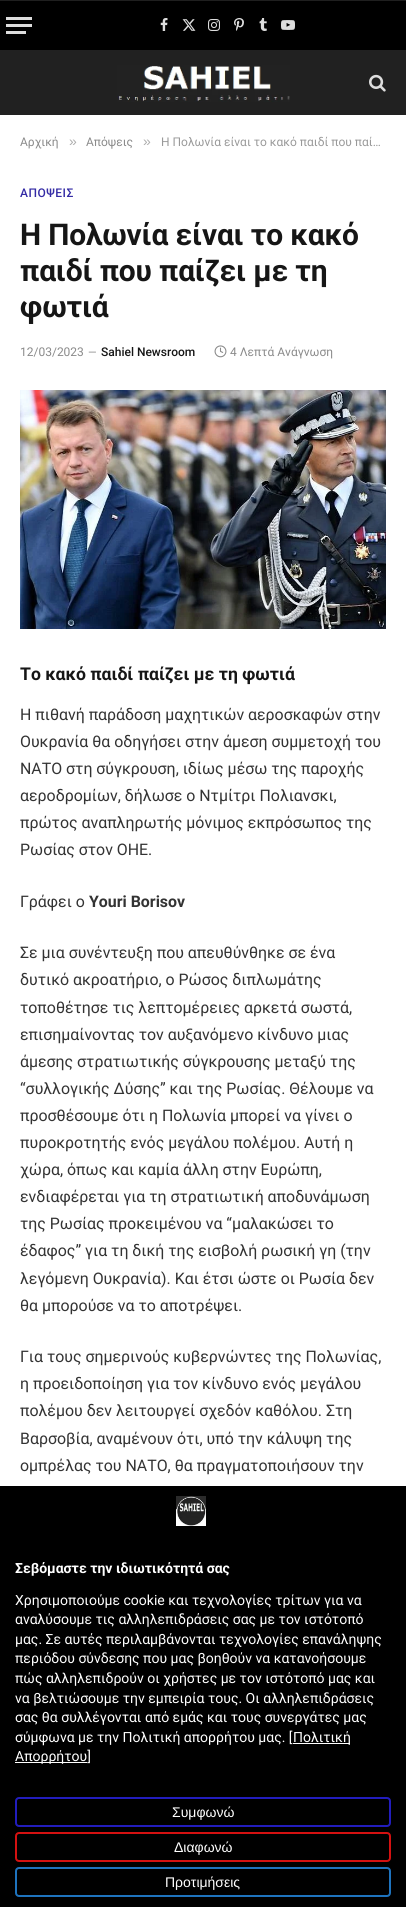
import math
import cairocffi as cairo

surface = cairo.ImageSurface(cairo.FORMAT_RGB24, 406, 1907)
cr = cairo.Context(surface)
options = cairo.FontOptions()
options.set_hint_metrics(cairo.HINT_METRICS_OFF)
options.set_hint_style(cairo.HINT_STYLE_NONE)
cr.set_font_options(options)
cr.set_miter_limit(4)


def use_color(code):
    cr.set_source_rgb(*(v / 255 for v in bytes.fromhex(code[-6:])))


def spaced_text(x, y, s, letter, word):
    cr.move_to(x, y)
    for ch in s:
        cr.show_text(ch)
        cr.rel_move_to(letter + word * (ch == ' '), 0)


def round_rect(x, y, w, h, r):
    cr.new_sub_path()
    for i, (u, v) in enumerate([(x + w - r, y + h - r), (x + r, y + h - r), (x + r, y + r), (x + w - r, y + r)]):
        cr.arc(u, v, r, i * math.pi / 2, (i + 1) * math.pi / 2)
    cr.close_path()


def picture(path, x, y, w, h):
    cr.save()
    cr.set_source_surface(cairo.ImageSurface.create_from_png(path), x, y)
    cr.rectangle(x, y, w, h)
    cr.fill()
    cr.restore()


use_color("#ffffff")
cr.paint()
use_color("#000000")
cr.rectangle(0, 1, 406, 49)
cr.fill()
use_color("#1f1f1f")
cr.rectangle(0, 0, 406, 1)
cr.fill()
use_color("#dddddd")
cr.rectangle(6, 31, 20, 3)
cr.fill()
cr.rectangle(6, 17, 26, 3)
cr.fill()
cr.rectangle(6, 24, 26, 3)
cr.fill()
picture("img1.png", 160, 18, 8, 13)
picture("img2.png", 182, 19, 14, 12)
picture("img3.png", 208, 19, 12, 12)
picture("img4.png", 234, 18, 10, 13)
picture("img5.png", 259, 18, 8, 13)
picture("img6.png", 281, 20, 14, 10)
use_color("#212121")
cr.rectangle(0, 50, 406, 65)
cr.fill()
picture("img7.png", 117, 65, 173, 37)
picture("img8.png", 369, 74, 17, 18)
cr.select_font_face("Roboto")
cr.set_font_size(12)
use_color("#8a8a8a")
cr.move_to(20, 146)
cr.show_text("Αρχική")
cr.select_font_face("Liberation Sans")
cr.set_font_size(14)
use_color("#adadad")
cr.move_to(69, 146)
cr.show_text("»")
cr.select_font_face("Roboto")
cr.set_font_size(12)
use_color("#8a8a8a")
cr.move_to(86, 146)
cr.show_text("Απόψεις")
cr.select_font_face("Liberation Sans")
cr.set_font_size(14)
use_color("#adadad")
cr.move_to(143, 146)
cr.show_text("»")
cr.select_font_face("Roboto")
cr.set_font_size(12)
use_color("#999999")
cr.move_to(161, 146)
cr.show_text("Η Πολωνία είναι το κακό παιδί που παί…")
cr.select_font_face("Roboto Medium")
use_color("#342ba5")
spaced_text(20, 197, "ΑΠΟΨΕΙΣ", 0.5, 0)
cr.select_font_face("Roboto", cairo.FONT_SLANT_NORMAL, cairo.FONT_WEIGHT_BOLD)
cr.set_font_size(29.9)
use_color("#161616")
spaced_text(20, 245, "Η Πολωνία είναι το κακό", -0.15, 0)
spaced_text(20, 281, "παιδί που παίζει με τη", -0.15, 0)
spaced_text(20, 317, "φωτιά", -0.15, 0)
cr.select_font_face("Roboto")
cr.set_font_size(12)
use_color("#8a8a8a")
cr.move_to(20, 356)
cr.show_text("12/03/2023")
cr.set_font_size(11)
cr.move_to(88, 356)
cr.show_text("—")
cr.select_font_face("Roboto Medium")
cr.set_font_size(12)
use_color("#161616")
cr.move_to(101, 356)
cr.show_text("Sahiel Newsroom")
picture("img9.png", 214, 345, 13, 13)
cr.select_font_face("Roboto")
use_color("#8a8a8a")
cr.move_to(230, 356)
cr.show_text("4 Λεπτά Ανάγνωση")
picture("img10.png", 20, 390, 366, 239)
cr.select_font_face("Roboto", cairo.FONT_SLANT_NORMAL, cairo.FONT_WEIGHT_BOLD)
cr.set_font_size(17.6)
use_color("#161616")
cr.move_to(20, 680)
cr.show_text("Το κακό παιδί παίζει με τη φωτιά")
cr.select_font_face("Roboto")
cr.set_font_size(15.9)
use_color("#333333")
cr.move_to(20, 720)
cr.show_text("Η πιθανή παράδοση μαχητικών αεροσκαφών στην")
cr.move_to(20, 747)
cr.show_text("Ουκρανία θα οδηγήσει στην άμεση συμμετοχή του")
cr.move_to(20, 774)
cr.show_text("ΝΑΤΟ στη σύγκρουση, ιδίως μέσω της παροχής")
cr.move_to(20, 801)
cr.show_text("αεροδρομίων, δήλωσε ο Ντμίτρι Πολιανσκι,")
cr.move_to(20, 828)
cr.show_text("πρώτος αναπληρωτής μόνιμος εκπρόσωπος της")
cr.move_to(20, 855)
cr.show_text("Ρωσίας στον ΟΗΕ.")
cr.move_to(20, 907)
cr.show_text("Γράφει ο")
cr.select_font_face("Roboto", cairo.FONT_SLANT_NORMAL, cairo.FONT_WEIGHT_BOLD)
cr.move_to(89, 907)
cr.show_text("Youri Borisov")
cr.select_font_face("Roboto")
cr.move_to(20, 958)
cr.show_text("Σε μια συνέντευξη που απευθύνθηκε σε ένα")
cr.move_to(20, 985)
cr.show_text("δυτικό ακροατήριο, ο Ρώσος διπλωμάτης")
cr.move_to(20, 1013)
cr.show_text("τοποθέτησε τις λεπτομέρειες αρκετά σωστά,")
cr.move_to(20, 1040)
cr.show_text("επισημαίνοντας τον αυξανόμενο κίνδυνο μιας")
cr.move_to(20, 1067)
cr.show_text("άμεσης στρατιωτικής σύγκρουσης μεταξύ της")
cr.move_to(20, 1094)
cr.show_text("“συλλογικής Δύσης” και της Ρωσίας. Θέλουμε να")
cr.move_to(20, 1121)
cr.show_text("προσθέσουμε ότι η Πολωνία μπορεί να γίνει ο")
cr.move_to(20, 1148)
cr.show_text("πυροκροτητής ενός μεγάλου πολέμου. Αυτή η")
cr.move_to(20, 1175)
cr.show_text("χώρα, όπως και καμία άλλη στην Ευρώπη,")
cr.move_to(20, 1202)
cr.show_text("ενδιαφέρεται για τη στρατιωτική αποδυνάμωση")
cr.move_to(20, 1229)
cr.show_text("της Ρωσίας προκειμένου να “μαλακώσει το")
cr.move_to(20, 1256)
cr.show_text("έδαφος” για τη δική της εισβολή ρωσική γη (την")
cr.move_to(20, 1284)
cr.show_text("λεγόμενη Ουκρανία). Και έτσι ώστε οι Ρωσία δεν")
cr.move_to(20, 1311)
cr.show_text("θα μπορούσε να το αποτρέψει.")
cr.move_to(20, 1362)
cr.show_text("Για τους σημερινούς κυβερνώντες της Πολωνίας,")
cr.move_to(20, 1389)
cr.show_text("η προειδοποίηση για τον κίνδυνο ενός μεγάλου")
cr.move_to(20, 1416)
cr.show_text("πολέμου δεν λειτουργεί σχεδόν καθόλου. Στη")
cr.move_to(20, 1444)
cr.show_text("Βαρσοβία, αναμένουν ότι, υπό την κάλυψη της")
cr.move_to(20, 1471)
cr.show_text("ομπρέλας του ΝΑΤΟ, θα πραγματοποιήσουν την")
use_color("#000000")
cr.rectangle(0, 1486, 406, 421)
cr.fill()
picture("img11.png", 176, 1496, 30, 30)
cr.select_font_face("Roboto", cairo.FONT_SLANT_NORMAL, cairo.FONT_WEIGHT_BOLD)
cr.set_font_size(14)
use_color("#ffffff")
cr.move_to(15, 1573)
cr.show_text("Σεβόμαστε την ιδιωτικότητά σας")
cr.select_font_face("Roboto")
cr.move_to(15, 1605)
cr.show_text("Χρησιμοποιούμε cookie και τεχνολογίες τρίτων για να")
cr.move_to(15, 1624)
cr.show_text("αναλύσουμε τις αλληλεπιδράσεις σας με τον ιστότοπό")
cr.move_to(15, 1644)
cr.show_text("μας. Σε αυτές περιλαμβάνονται τεχνολογίες επανάληψης")
cr.move_to(15, 1663)
cr.show_text("περιόδου σύνδεσης που μας βοηθούν να κατανοήσουμε")
cr.move_to(15, 1683)
cr.show_text("πώς αλληλεπιδρούν οι χρήστες με τον ιστότοπό μας και")
cr.move_to(15, 1703)
cr.show_text("να βελτιώσουμε την εμπειρία τους. Οι αλληλεπιδράσεις")
cr.move_to(15, 1722)
cr.show_text("σας θα συλλέγονται από εμάς και τους συνεργάτες μας")
cr.move_to(15, 1742)
cr.show_text("σύμφωνα με την Πολιτική απορρήτου μας. [")
cr.rectangle(293, 1743, 57, 1)
cr.fill()
cr.move_to(293, 1742)
cr.show_text("Πολιτική")
cr.rectangle(15, 1762, 72, 1)
cr.fill()
cr.move_to(15, 1761)
cr.show_text("Απορρήτου]")
round_rect(16, 1798, 374, 28, 3)
use_color("#221dbd")
cr.stroke()
cr.select_font_face("Liberation Sans")
use_color("#ffffff")
cr.move_to(172, 1817)
cr.show_text("Συμφωνώ")
round_rect(16, 1833, 374, 28, 3)
use_color("#d41111")
cr.stroke()
use_color("#ffffff")
cr.move_to(174, 1852)
cr.show_text("Διαφωνώ")
round_rect(16, 1868, 374, 28, 3)
use_color("#1e73be")
cr.stroke()
use_color("#ffffff")
cr.move_to(165, 1887)
cr.show_text("Προτιμήσεις")
surface.write_to_png("result.png")
